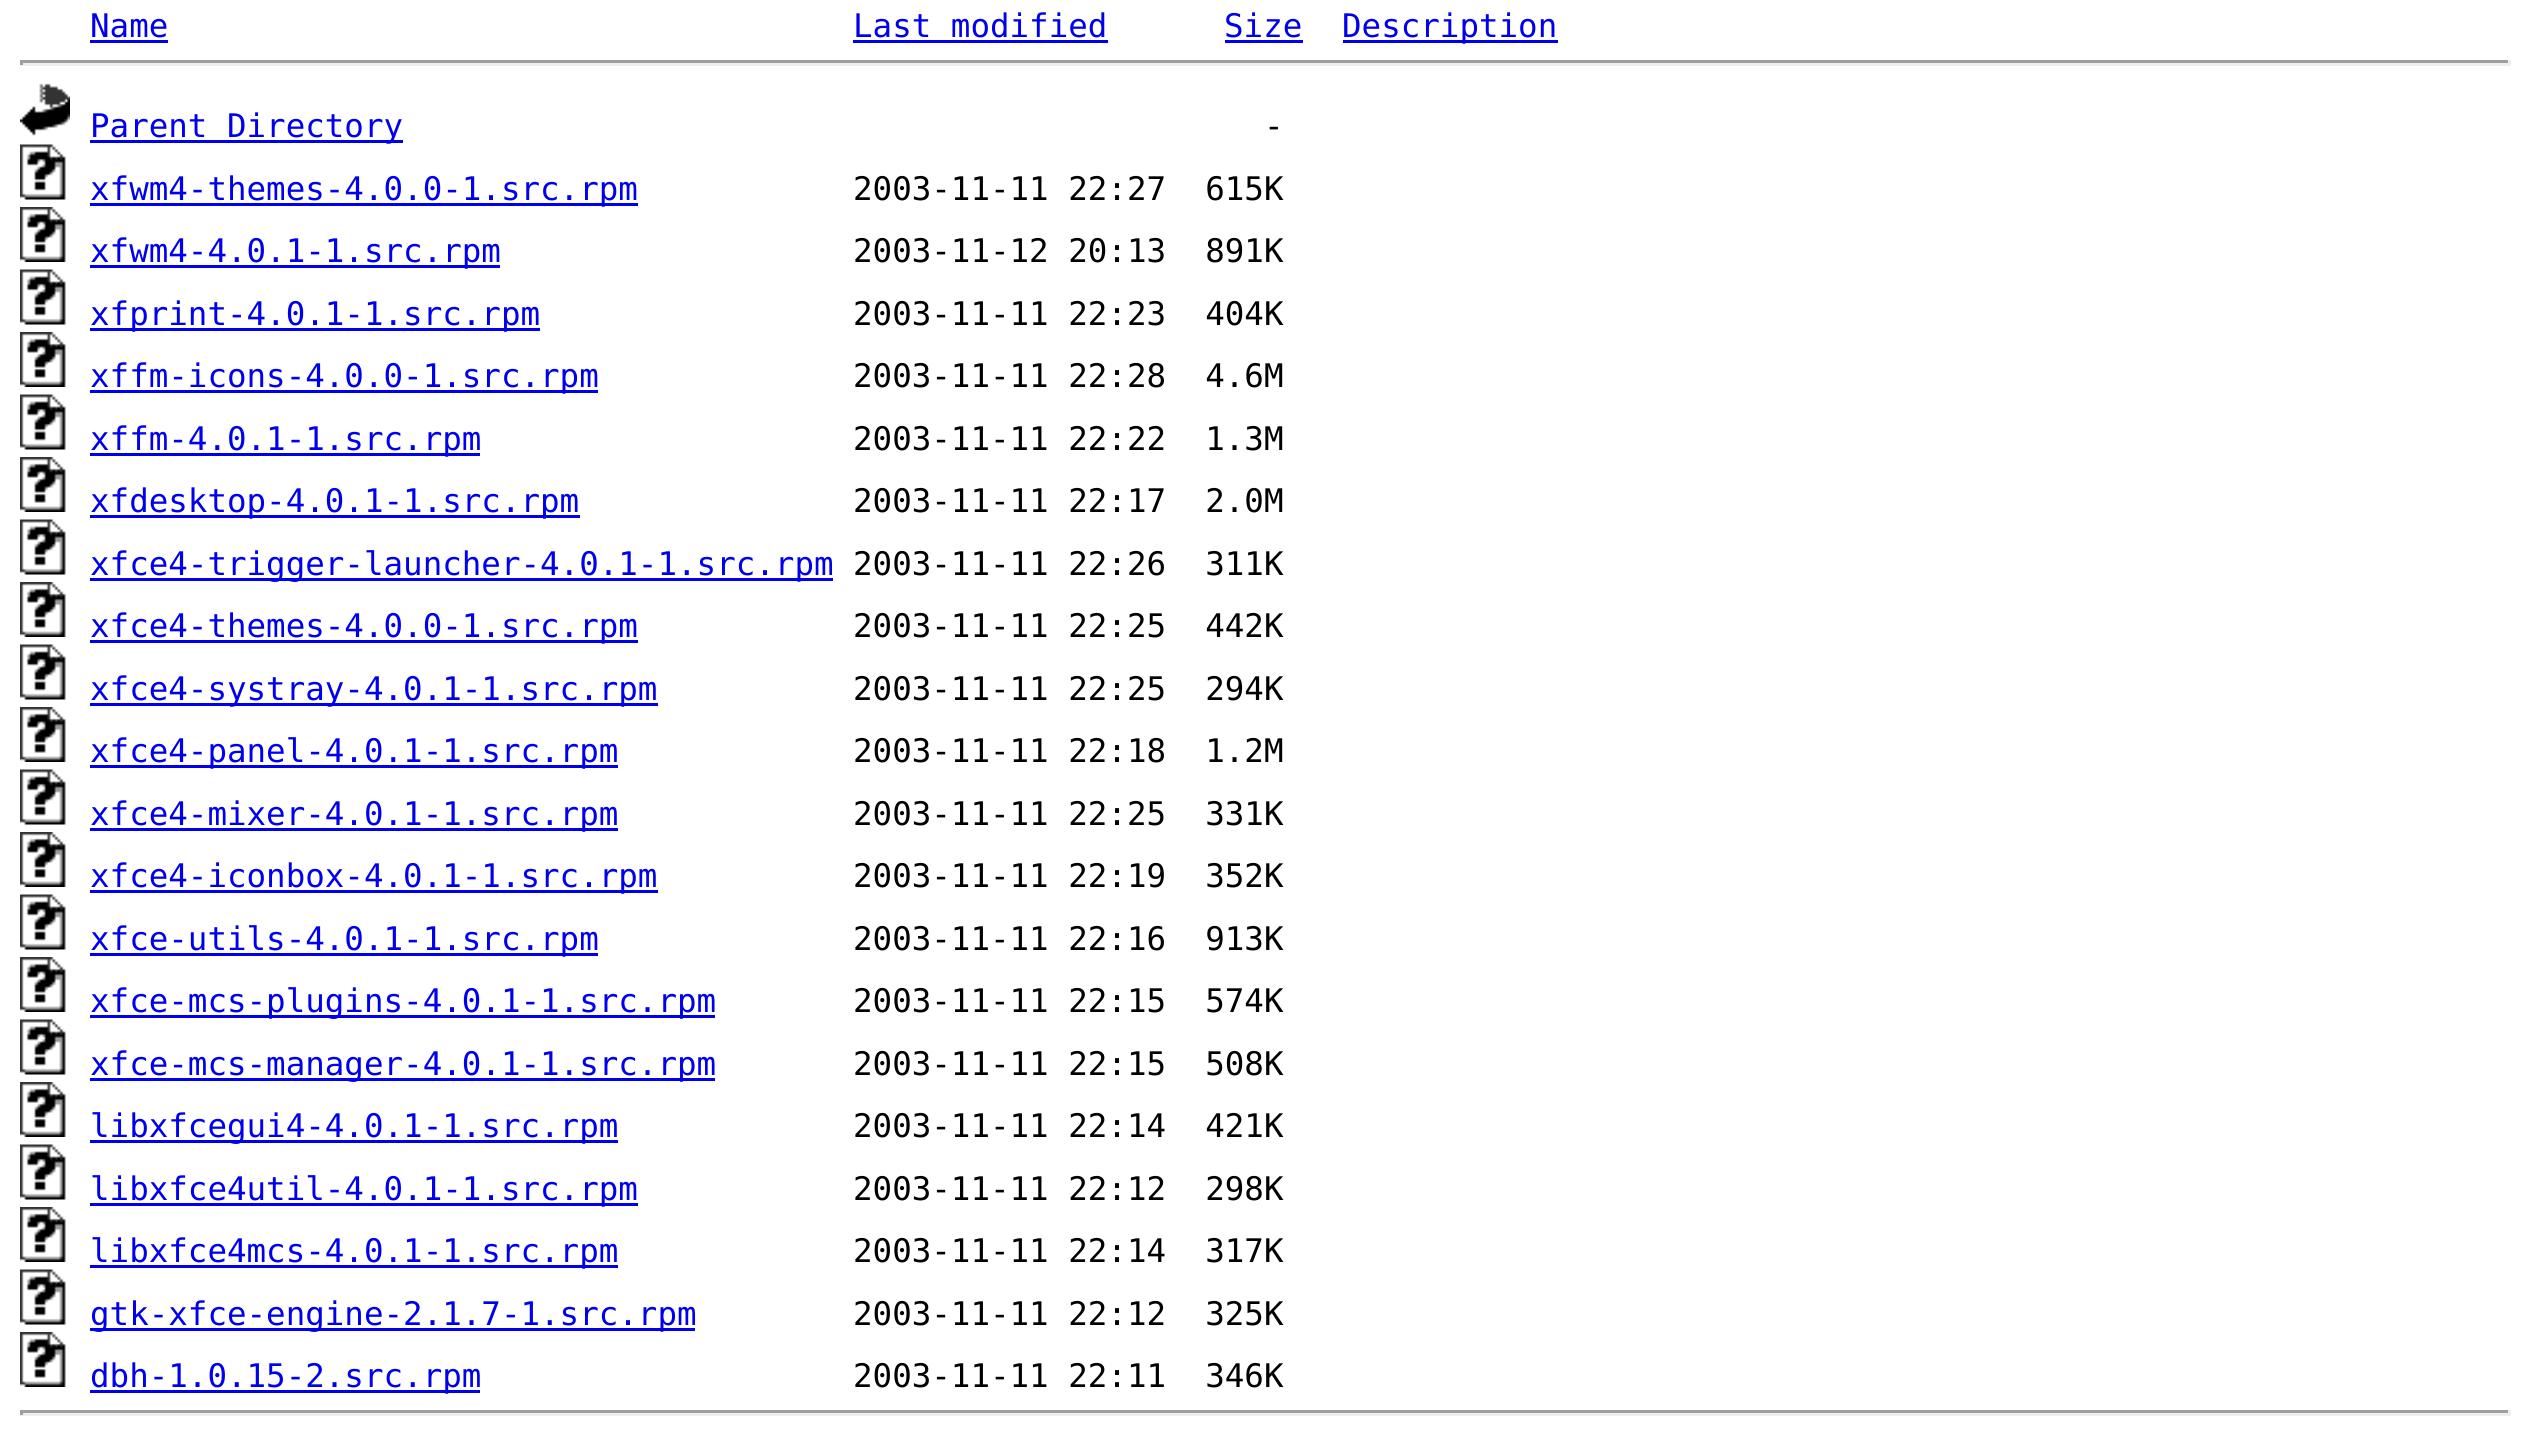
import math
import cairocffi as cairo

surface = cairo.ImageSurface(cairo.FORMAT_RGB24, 2528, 1446)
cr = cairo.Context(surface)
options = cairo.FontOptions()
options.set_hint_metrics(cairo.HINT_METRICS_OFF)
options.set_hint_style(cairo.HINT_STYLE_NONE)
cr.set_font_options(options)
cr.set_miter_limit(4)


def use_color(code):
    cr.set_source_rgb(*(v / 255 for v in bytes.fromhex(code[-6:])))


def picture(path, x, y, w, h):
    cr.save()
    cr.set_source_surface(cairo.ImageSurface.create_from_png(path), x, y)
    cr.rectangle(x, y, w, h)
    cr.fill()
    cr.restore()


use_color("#ffffff")
cr.paint()
cr.select_font_face("DejaVu Sans Mono")
cr.set_font_size(32.5)
use_color("#0000ee")
cr.move_to(90, 37)
cr.show_text("Name")
cr.rectangle(90, 40, 78, 3)
cr.fill()
cr.move_to(853, 37)
cr.show_text("Last modified")
cr.rectangle(853, 40, 255, 3)
cr.fill()
cr.move_to(1224, 37)
cr.show_text("Size")
cr.rectangle(1225, 40, 78, 3)
cr.fill()
cr.rectangle(1343, 40, 215, 3)
cr.fill()
cr.move_to(1342, 37)
cr.show_text("Description")
use_color("#9f9f9f")
cr.rectangle(20, 60, 2490, 3)
cr.fill()
use_color("#eeeeee")
cr.rectangle(2508, 60, 3, 5)
cr.fill()
cr.rectangle(20, 63, 2490, 3)
cr.fill()
use_color("#9f9f9f")
cr.rectangle(20, 60, 3, 5)
cr.fill()
picture("img1.png", 20, 83, 50, 53)
use_color("#0000ee")
cr.rectangle(90, 140, 313, 3)
cr.fill()
cr.move_to(90, 137)
cr.show_text("Parent Directory")
use_color("#000000")
cr.move_to(1264, 137)
cr.show_text("-")
picture("img2.png", 20, 144, 46, 56)
use_color("#0000ee")
cr.rectangle(90, 203, 548, 3)
cr.fill()
cr.move_to(90, 200)
cr.show_text("xfwm4-themes-4.0.0-1.src.rpm")
use_color("#000000")
cr.move_to(853, 200)
cr.show_text("2003-11-11 22:27  615K")
picture("img3.png", 20, 207, 46, 55)
use_color("#0000ee")
cr.rectangle(90, 265, 410, 3)
cr.fill()
cr.move_to(90, 262)
cr.show_text("xfwm4-4.0.1-1.src.rpm")
use_color("#000000")
cr.move_to(853, 262)
cr.show_text("2003-11-12 20:13  891K")
picture("img2.png", 20, 269, 46, 56)
use_color("#0000ee")
cr.rectangle(90, 328, 450, 3)
cr.fill()
cr.move_to(90, 325)
cr.show_text("xfprint-4.0.1-1.src.rpm")
use_color("#000000")
cr.move_to(853, 325)
cr.show_text("2003-11-11 22:23  404K")
picture("img4.png", 20, 332, 46, 55)
use_color("#0000ee")
cr.rectangle(90, 390, 508, 3)
cr.fill()
cr.move_to(90, 387)
cr.show_text("xffm-icons-4.0.0-1.src.rpm")
use_color("#000000")
cr.move_to(853, 387)
cr.show_text("2003-11-11 22:28  4.6M")
picture("img2.png", 20, 394, 46, 56)
use_color("#0000ee")
cr.rectangle(90, 453, 390, 3)
cr.fill()
cr.move_to(90, 450)
cr.show_text("xffm-4.0.1-1.src.rpm")
use_color("#000000")
cr.move_to(853, 450)
cr.show_text("2003-11-11 22:22  1.3M")
picture("img3.png", 20, 457, 46, 55)
use_color("#0000ee")
cr.rectangle(90, 515, 490, 3)
cr.fill()
cr.move_to(90, 512)
cr.show_text("xfdesktop-4.0.1-1.src.rpm")
use_color("#000000")
cr.move_to(853, 512)
cr.show_text("2003-11-11 22:17  2.0M")
picture("img2.png", 20, 519, 46, 56)
use_color("#0000ee")
cr.rectangle(90, 578, 743, 3)
cr.fill()
cr.move_to(90, 575)
cr.show_text("xfce4-trigger-launcher-4.0.1-1.src.rpm")
use_color("#000000")
cr.move_to(853, 575)
cr.show_text("2003-11-11 22:26  311K")
picture("img3.png", 20, 582, 46, 55)
use_color("#0000ee")
cr.rectangle(90, 640, 548, 3)
cr.fill()
cr.move_to(90, 637)
cr.show_text("xfce4-themes-4.0.0-1.src.rpm")
use_color("#000000")
cr.move_to(853, 637)
cr.show_text("2003-11-11 22:25  442K")
picture("img2.png", 20, 644, 46, 56)
use_color("#0000ee")
cr.rectangle(90, 703, 568, 3)
cr.fill()
cr.move_to(90, 700)
cr.show_text("xfce4-systray-4.0.1-1.src.rpm")
use_color("#000000")
cr.move_to(853, 700)
cr.show_text("2003-11-11 22:25  294K")
picture("img3.png", 20, 707, 46, 55)
use_color("#0000ee")
cr.rectangle(90, 765, 528, 3)
cr.fill()
cr.move_to(90, 762)
cr.show_text("xfce4-panel-4.0.1-1.src.rpm")
use_color("#000000")
cr.move_to(853, 762)
cr.show_text("2003-11-11 22:18  1.2M")
picture("img2.png", 20, 769, 46, 56)
use_color("#0000ee")
cr.rectangle(90, 828, 528, 3)
cr.fill()
cr.move_to(90, 825)
cr.show_text("xfce4-mixer-4.0.1-1.src.rpm")
use_color("#000000")
cr.move_to(853, 825)
cr.show_text("2003-11-11 22:25  331K")
picture("img3.png", 20, 832, 46, 55)
use_color("#0000ee")
cr.rectangle(90, 890, 568, 3)
cr.fill()
cr.move_to(90, 887)
cr.show_text("xfce4-iconbox-4.0.1-1.src.rpm")
use_color("#000000")
cr.move_to(853, 887)
cr.show_text("2003-11-11 22:19  352K")
picture("img2.png", 20, 894, 46, 56)
use_color("#0000ee")
cr.rectangle(90, 953, 508, 3)
cr.fill()
cr.move_to(90, 950)
cr.show_text("xfce-utils-4.0.1-1.src.rpm")
use_color("#000000")
cr.move_to(853, 950)
cr.show_text("2003-11-11 22:16  913K")
picture("img5.png", 20, 957, 46, 55)
use_color("#0000ee")
cr.rectangle(90, 1015, 625, 3)
cr.fill()
cr.move_to(90, 1012)
cr.show_text("xfce-mcs-plugins-4.0.1-1.src.rpm")
use_color("#000000")
cr.move_to(853, 1012)
cr.show_text("2003-11-11 22:15  574K")
picture("img2.png", 20, 1019, 46, 56)
use_color("#0000ee")
cr.rectangle(90, 1078, 625, 3)
cr.fill()
cr.move_to(90, 1075)
cr.show_text("xfce-mcs-manager-4.0.1-1.src.rpm")
use_color("#000000")
cr.move_to(853, 1075)
cr.show_text("2003-11-11 22:15  508K")
picture("img3.png", 20, 1082, 46, 55)
use_color("#0000ee")
cr.rectangle(90, 1140, 528, 3)
cr.fill()
cr.move_to(90, 1137)
cr.show_text("libxfcegui4-4.0.1-1.src.rpm")
use_color("#000000")
cr.move_to(853, 1137)
cr.show_text("2003-11-11 22:14  421K")
picture("img2.png", 20, 1144, 46, 56)
use_color("#0000ee")
cr.rectangle(90, 1203, 548, 3)
cr.fill()
cr.move_to(90, 1200)
cr.show_text("libxfce4util-4.0.1-1.src.rpm")
use_color("#000000")
cr.move_to(853, 1200)
cr.show_text("2003-11-11 22:12  298K")
picture("img3.png", 20, 1207, 46, 55)
use_color("#0000ee")
cr.rectangle(90, 1265, 528, 3)
cr.fill()
cr.move_to(90, 1262)
cr.show_text("libxfce4mcs-4.0.1-1.src.rpm")
use_color("#000000")
cr.move_to(853, 1262)
cr.show_text("2003-11-11 22:14  317K")
picture("img2.png", 20, 1269, 46, 56)
use_color("#0000ee")
cr.rectangle(90, 1328, 605, 3)
cr.fill()
cr.move_to(90, 1325)
cr.show_text("gtk-xfce-engine-2.1.7-1.src.rpm")
use_color("#000000")
cr.move_to(853, 1325)
cr.show_text("2003-11-11 22:12  325K")
picture("img6.png", 20, 1332, 46, 55)
use_color("#0000ee")
cr.rectangle(90, 1390, 390, 3)
cr.fill()
cr.move_to(90, 1387)
cr.show_text("dbh-1.0.15-2.src.rpm")
use_color("#000000")
cr.move_to(853, 1387)
cr.show_text("2003-11-11 22:11  346K")
use_color("#9f9f9f")
cr.rectangle(20, 1410, 2490, 3)
cr.fill()
use_color("#eeeeee")
cr.rectangle(2508, 1410, 3, 5)
cr.fill()
cr.rectangle(20, 1413, 2490, 3)
cr.fill()
use_color("#9f9f9f")
cr.rectangle(20, 1410, 3, 5)
cr.fill()
surface.write_to_png("result.png")
